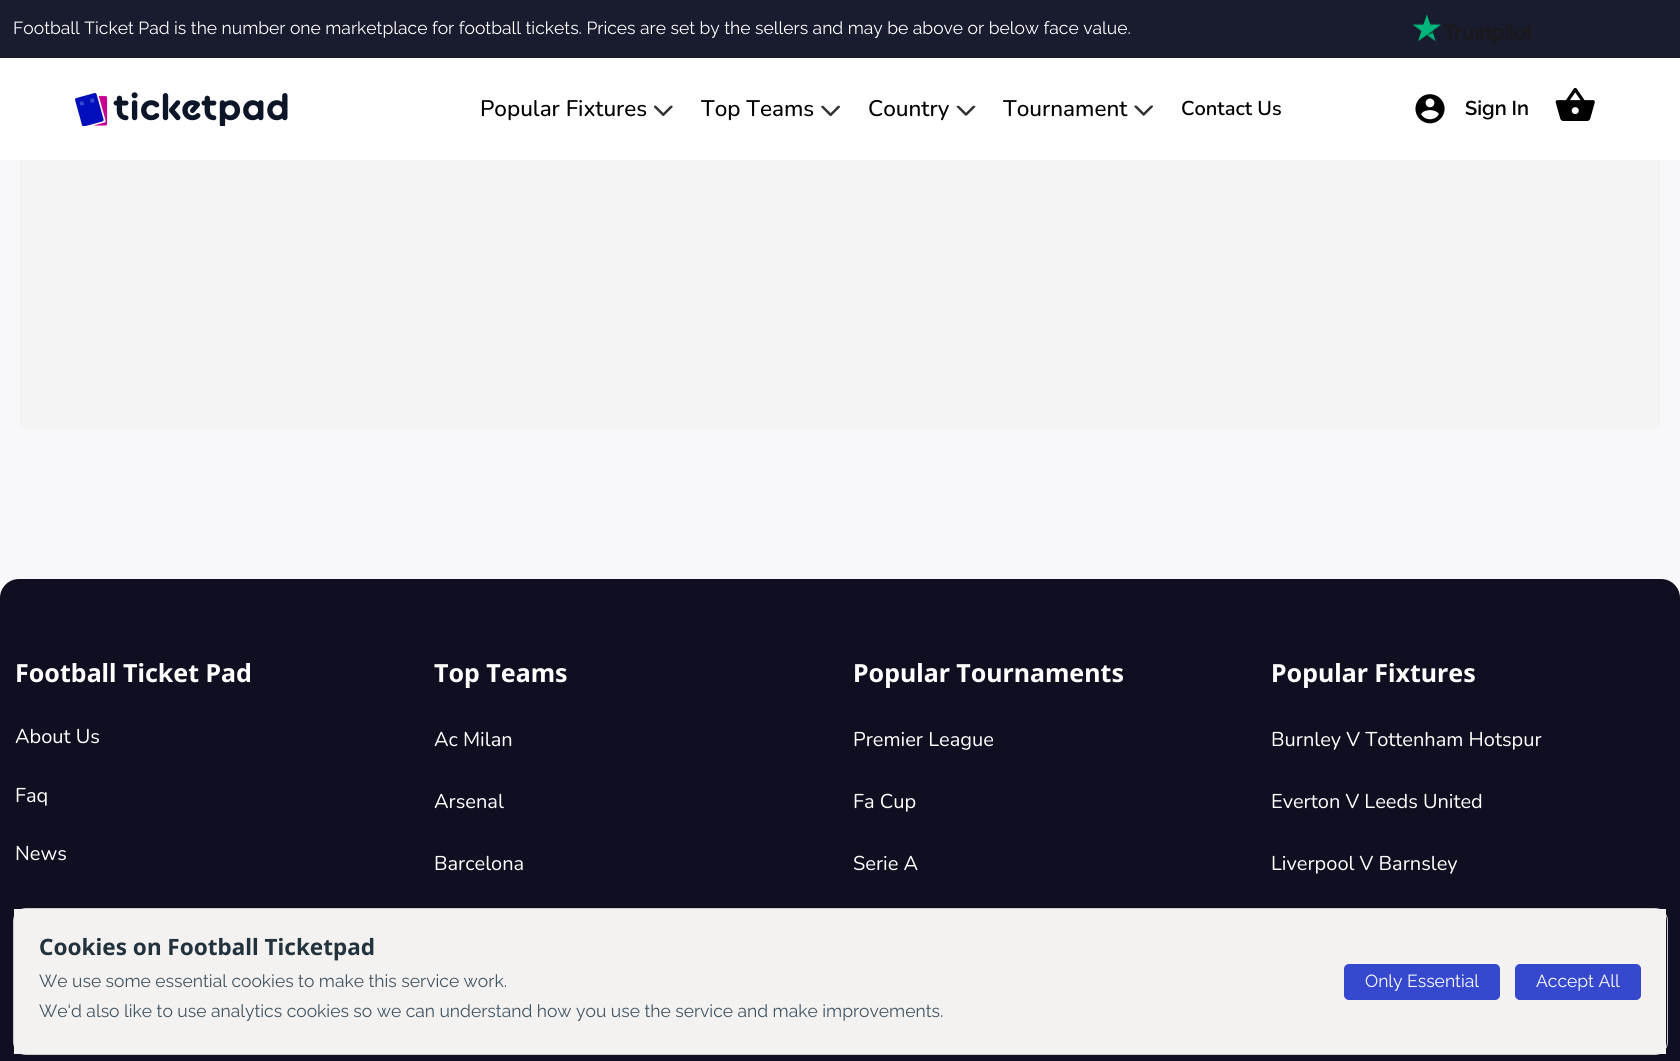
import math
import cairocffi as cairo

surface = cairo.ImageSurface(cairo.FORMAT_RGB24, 1680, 1061)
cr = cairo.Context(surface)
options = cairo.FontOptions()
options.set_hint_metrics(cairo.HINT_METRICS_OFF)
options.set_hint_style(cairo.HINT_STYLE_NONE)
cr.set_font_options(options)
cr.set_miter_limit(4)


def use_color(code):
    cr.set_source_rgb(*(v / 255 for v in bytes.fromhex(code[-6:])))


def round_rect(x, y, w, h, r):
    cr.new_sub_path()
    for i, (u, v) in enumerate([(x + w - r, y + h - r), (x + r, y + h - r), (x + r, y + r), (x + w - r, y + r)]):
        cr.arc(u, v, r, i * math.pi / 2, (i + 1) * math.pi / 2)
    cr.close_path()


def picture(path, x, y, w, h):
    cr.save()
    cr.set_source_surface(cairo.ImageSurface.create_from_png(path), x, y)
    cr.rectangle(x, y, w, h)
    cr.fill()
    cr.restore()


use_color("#f8f8fb")
cr.paint()
use_color("#ffffff")
cr.rectangle(0, 58, 1680, 102)
cr.fill()
use_color("#191b2e")
cr.rectangle(0, 0, 1680, 58)
cr.fill()
cr.select_font_face("Raleway")
cr.set_font_size(17.5)
use_color("#ffffff")
cr.move_to(13, 34)
cr.show_text("Football Ticket Pad is the number one marketplace for football tickets. Prices are set by the sellers and may be above or below face value.")
picture("img1.png", 1412, 14, 121, 30)
picture("img2.png", 75, 92, 213, 34)
cr.select_font_face("Nunito Medium")
cr.set_font_size(22.5)
use_color("#000000")
cr.move_to(480, 116)
cr.show_text("Popular Fixtures")
picture("img3.png", 653, 105, 20, 11)
cr.move_to(701, 116)
cr.show_text("Top Teams")
picture("img4.png", 821, 105, 19, 11)
cr.move_to(868, 116)
cr.show_text("Country")
picture("img5.png", 956, 105, 20, 11)
cr.move_to(1003, 116)
cr.show_text("Tournament")
picture("img6.png", 1134, 105, 19, 11)
cr.select_font_face("Nunito SemiBold")
cr.set_font_size(20)
cr.move_to(1181, 115)
cr.show_text("Contact Us")
picture("img7.png", 1415, 94, 30, 30)
cr.select_font_face("Raleway SemiBold")
cr.move_to(1465, 115)
cr.show_text("Sign In")
picture("img8.png", 1555, 88, 40, 33)
use_color("#f4f4f4")
cr.rectangle(20, 160, 1640, 269)
cr.fill()
use_color("#100f21")
cr.new_path()
cr.move_to(19, 579)
cr.line_to(1661, 579)
cr.curve_to(1671.5, 579, 1680, 587.5, 1680, 598)
cr.line_to(1680, 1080)
cr.line_to(0, 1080)
cr.line_to(0, 598)
cr.curve_to(0, 587.5, 8.5, 579, 19, 579)
cr.close_path()
cr.fill()
cr.select_font_face("Noto Sans", cairo.FONT_SLANT_NORMAL, cairo.FONT_WEIGHT_BOLD)
cr.set_font_size(25)
use_color("#ffffff")
cr.move_to(15, 682)
cr.show_text("Football Ticket Pad")
cr.select_font_face("Nunito")
cr.set_font_size(20)
cr.move_to(15, 743)
cr.show_text("About Us")
cr.move_to(15, 802)
cr.show_text("Faq")
cr.move_to(15, 860)
cr.show_text("News")
cr.select_font_face("Noto Sans", cairo.FONT_SLANT_NORMAL, cairo.FONT_WEIGHT_BOLD)
cr.set_font_size(25)
cr.move_to(434, 682)
cr.show_text("Top Teams")
cr.select_font_face("Nunito")
cr.set_font_size(20)
cr.move_to(434, 746)
cr.show_text("Ac Milan")
cr.move_to(434, 808)
cr.show_text("Arsenal")
cr.move_to(434, 870)
cr.show_text("Barcelona")
cr.select_font_face("Noto Sans", cairo.FONT_SLANT_NORMAL, cairo.FONT_WEIGHT_BOLD)
cr.set_font_size(25)
cr.move_to(853, 682)
cr.show_text("Popular Tournaments")
cr.select_font_face("Nunito")
cr.set_font_size(20)
cr.move_to(853, 746)
cr.show_text("Premier League")
cr.move_to(853, 808)
cr.show_text("Fa Cup")
cr.move_to(853, 870)
cr.show_text("Serie A")
cr.select_font_face("Noto Sans", cairo.FONT_SLANT_NORMAL, cairo.FONT_WEIGHT_BOLD)
cr.set_font_size(25)
cr.move_to(1271, 682)
cr.show_text("Popular Fixtures")
cr.select_font_face("Nunito")
cr.set_font_size(20)
cr.move_to(1271, 746)
cr.show_text("Burnley V Tottenham Hotspur")
cr.move_to(1271, 808)
cr.show_text("Everton V Leeds United")
cr.move_to(1271, 870)
cr.show_text("Liverpool V Barnsley")
round_rect(13.5, 908.5, 1654, 146, 12.5)
use_color("#cccccc")
cr.set_line_width(1)
cr.stroke()
use_color("#f3f2f1")
cr.rectangle(14, 909, 1652, 145)
cr.fill()
cr.select_font_face("Noto Sans", cairo.FONT_SLANT_NORMAL, cairo.FONT_WEIGHT_BOLD)
cr.set_font_size(22.5)
use_color("#23333e")
cr.move_to(39, 955)
cr.show_text("Cookies on Football Ticketpad")
cr.select_font_face("Raleway")
cr.set_font_size(17.5)
use_color("#415462")
cr.move_to(39, 987)
cr.show_text("We use some essential cookies to make this service work.")
cr.move_to(39, 1017)
cr.show_text("We'd also like to use analytics cookies so we can understand how you use the service and make improvements.")
use_color("#3649ce")
round_rect(1344.5, 964.5, 155, 35, 4.5)
cr.fill_preserve()
cr.stroke()
use_color("#ffffff")
cr.move_to(1365, 987)
cr.show_text("Only Essential")
use_color("#3649ce")
round_rect(1515.5, 964.5, 125, 35, 4.5)
cr.fill_preserve()
cr.stroke()
use_color("#ffffff")
cr.move_to(1536, 987)
cr.show_text("Accept All")
surface.write_to_png("result.png")
